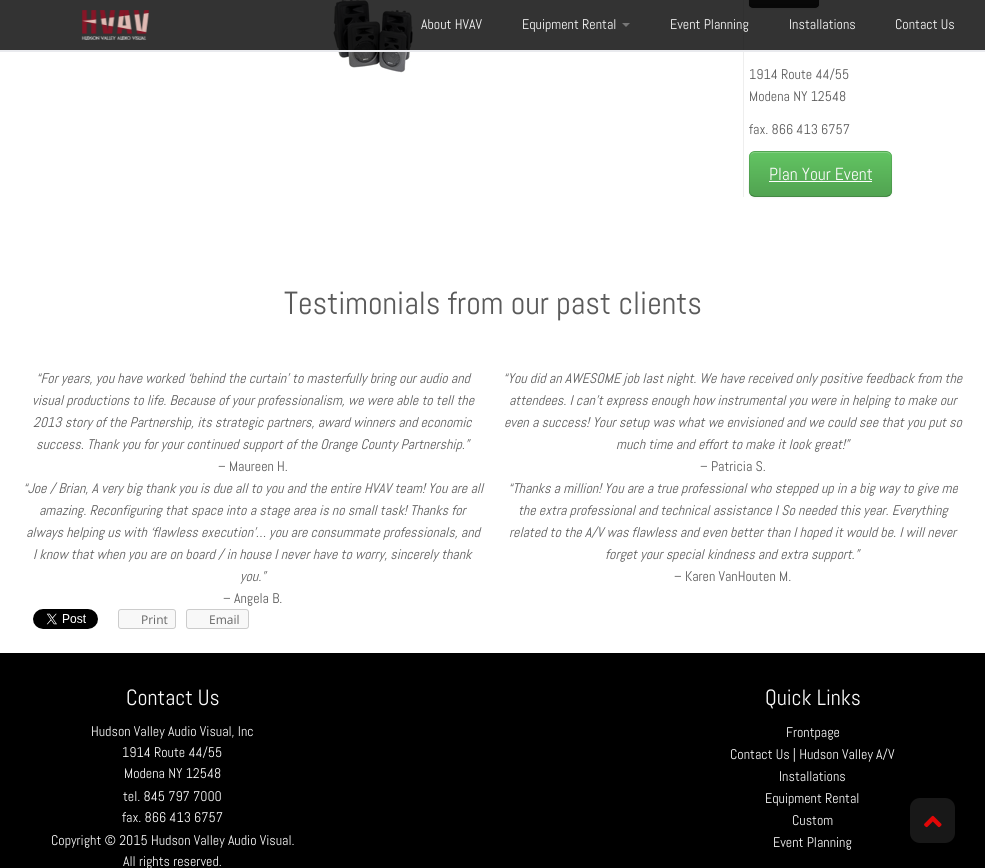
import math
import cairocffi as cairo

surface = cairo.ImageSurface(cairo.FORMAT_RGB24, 985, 868)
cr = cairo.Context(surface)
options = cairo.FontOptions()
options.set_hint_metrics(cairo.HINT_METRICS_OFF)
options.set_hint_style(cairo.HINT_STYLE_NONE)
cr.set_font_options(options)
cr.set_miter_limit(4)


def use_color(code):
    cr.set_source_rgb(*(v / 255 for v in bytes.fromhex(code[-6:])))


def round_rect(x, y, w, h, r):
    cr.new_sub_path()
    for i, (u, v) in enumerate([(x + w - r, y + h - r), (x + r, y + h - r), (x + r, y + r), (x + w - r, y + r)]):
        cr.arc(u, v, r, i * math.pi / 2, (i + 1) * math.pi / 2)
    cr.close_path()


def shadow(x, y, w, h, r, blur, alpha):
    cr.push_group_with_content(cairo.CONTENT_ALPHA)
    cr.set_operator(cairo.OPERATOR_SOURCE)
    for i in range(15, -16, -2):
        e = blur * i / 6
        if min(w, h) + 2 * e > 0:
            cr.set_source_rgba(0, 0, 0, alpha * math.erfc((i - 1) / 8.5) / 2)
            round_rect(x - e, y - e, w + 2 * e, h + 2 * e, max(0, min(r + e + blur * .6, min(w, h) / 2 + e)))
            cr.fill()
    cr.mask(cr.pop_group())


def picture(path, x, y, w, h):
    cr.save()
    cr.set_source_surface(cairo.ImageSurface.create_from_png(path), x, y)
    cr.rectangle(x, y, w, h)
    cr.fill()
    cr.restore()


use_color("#ffffff")
cr.paint()
picture("img2.png", 333, 0, 80, 73)
use_color("#eeeeee")
cr.rectangle(743, 0, 1, 197)
cr.fill()
use_color("#000000")
shadow(749, -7, 70, 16, 4, 1, 0.05)
use_color("#363636")
round_rect(749, -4, 70, 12, 4)
cr.fill()
cr.save()
round_rect(749, -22, 70, 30, 4)
cr.clip()
gradient = cairo.LinearGradient(784, -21, 784, 7)
gradient.add_color_stop_rgba(0, 0.267, 0.267, 0.267, 1)
gradient.add_color_stop_rgba(1, 0.133, 0.133, 0.133, 1)
cr.set_source(gradient)
cr.rectangle(749, 0, 70, 7)
cr.fill()
cr.restore()
cr.new_path()
cr.move_to(817.5, 6.5)
cr.line_to(815.5, 7.5)
cr.line_to(752.5, 7.5)
cr.line_to(750.5, 6.5)
cr.set_source_rgba(0, 0, 0, 0.25)
cr.set_line_width(1)
cr.stroke()
cr.new_path()
cr.move_to(750.5, 6.5)
cr.curve_to(748.5, 4.5, 749.5, -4, 749.5, -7)
cr.curve_to(749.5, -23, 747, -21.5, 763.5, -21.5)
cr.line_to(804.5, -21.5)
cr.curve_to(821, -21.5, 818.5, -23, 818.5, -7)
cr.curve_to(818.5, -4, 819.5, 4.5, 817.5, 6.5)
cr.set_source_rgba(0, 0, 0, 0.1)
cr.stroke()
cr.set_source_rgba(0, 0, 0, 0.8)
cr.rectangle(0, 0, 985, 50)
cr.fill()
use_color("#e9eaee")
cr.rectangle(0, 50, 985, 2)
cr.fill()
picture("img1.png", 81, 10, 68, 30)
cr.select_font_face("Abel")
cr.set_font_size(14)
use_color("#fafafa")
cr.move_to(421, 29)
cr.show_text("About HVAV")
cr.move_to(522, 29)
cr.show_text("Equipment Rental")
use_color("#777777")
cr.new_path()
cr.move_to(622, 23)
cr.line_to(630, 23)
cr.line_to(626, 27)
cr.close_path()
cr.fill()
use_color("#fafafa")
cr.move_to(670, 29)
cr.show_text("Event Planning")
cr.move_to(789, 29)
cr.show_text("Installations")
cr.move_to(895, 29)
cr.show_text("Contact Us")
use_color("#5a5a5a")
cr.move_to(749, 79)
cr.show_text("1914 Route 44/55")
cr.move_to(749, 101)
cr.show_text("Modena NY 12548")
cr.move_to(749, 134)
cr.show_text("fax. 866 413 6757")
use_color("#000000")
shadow(749, 152, 143, 46, 6, 1, 0.05)
use_color("#5bb75b")
round_rect(749, 151, 143, 46, 6)
cr.fill()
cr.save()
round_rect(749, 151, 143, 46, 6)
cr.clip()
gradient = cairo.LinearGradient(821, 152, 821, 196)
gradient.add_color_stop_rgba(0, 0.384, 0.769, 0.384, 1)
gradient.add_color_stop_rgba(1, 0.318, 0.639, 0.318, 1)
cr.set_source(gradient)
cr.rectangle(749, 152, 143, 44)
cr.fill()
cr.restore()
use_color("#81d081")
cr.new_path()
cr.move_to(755, 153)
cr.line_to(886, 153)
cr.curve_to(889, 153, 891, 155, 891, 158)
cr.line_to(891, 157)
cr.curve_to(891, 154, 889, 152, 886, 152)
cr.line_to(755, 152)
cr.curve_to(752, 152, 750, 154, 750, 157)
cr.line_to(750, 158)
cr.curve_to(750, 155, 752, 153, 755, 153)
cr.close_path()
cr.fill()
cr.new_path()
cr.move_to(890, 195)
cr.line_to(886.5, 196.5)
cr.line_to(754.5, 196.5)
cr.line_to(751, 195)
cr.set_source_rgba(0, 0, 0, 0.25)
cr.stroke()
cr.new_path()
cr.move_to(751, 195)
cr.curve_to(748, 191.5, 749.5, 183.5, 749.5, 179.5)
cr.line_to(749.5, 162.5)
cr.curve_to(749.5, 158.5, 749, 151.5, 755, 151.5)
cr.line_to(864, 151.5)
cr.curve_to(894.5, 151.5, 891.5, 146.5, 891.5, 174)
cr.line_to(891.5, 185.5)
cr.curve_to(891.5, 188.5, 892.5, 192.5, 890, 195)
cr.set_source_rgba(0, 0, 0, 0.1)
cr.stroke()
cr.set_font_size(17.5)
use_color("#fafafa")
cr.move_to(769, 180)
cr.show_text("Plan Your Event")
use_color("#ffffff")
cr.rectangle(769, 181, 103, 1)
cr.fill()
cr.set_font_size(32)
use_color("#5a5a5a")
cr.move_to(284, 314)
cr.show_text("Testimonials from our past clients")
cr.select_font_face("Abel", cairo.FONT_SLANT_ITALIC)
cr.set_font_size(14)
cr.move_to(36, 383)
cr.show_text("“For years, you have worked ‘behind the curtain’ to masterfully bring our audio and")
cr.move_to(32, 405)
cr.show_text("visual productions to life. Because of your professionalism, we were able to tell the")
cr.move_to(33, 427)
cr.show_text("2013 story of the Partnership, its strategic partners, award winners and economic")
cr.move_to(36, 449)
cr.show_text("success. Thank you for your continued support of the Orange County Partnership.”")
cr.select_font_face("Abel")
cr.move_to(218, 471)
cr.show_text("– Maureen H.")
cr.select_font_face("Abel", cairo.FONT_SLANT_ITALIC)
cr.move_to(503, 383)
cr.show_text("“You did an AWESOME job last night. We have received only positive feedback from the")
cr.move_to(509, 405)
cr.show_text("attendees. I can’t express enough how instrumental you were in helping to make our")
cr.move_to(504, 427)
cr.show_text("even a success! Your setup was what we envisioned and we could see that you put so")
cr.move_to(616, 449)
cr.show_text("much time and effort to make it look great!”")
cr.select_font_face("Abel")
cr.move_to(700, 471)
cr.show_text("– Patricia S.")
cr.select_font_face("Abel", cairo.FONT_SLANT_ITALIC)
cr.move_to(23, 493)
cr.show_text("“Joe / Brian, A very big thank you is due all to you and the entire HVAV team! You are all")
cr.move_to(39, 515)
cr.show_text("amazing. Reconfiguring that space into a stage area is no small task! Thanks for")
cr.move_to(26, 537)
cr.show_text("always helping us with ‘flawless execution’… you are consummate professionals, and")
cr.move_to(33, 559)
cr.show_text("I know that when you are on board / in house I never have to worry, sincerely thank")
cr.move_to(240, 581)
cr.show_text("you.”")
cr.select_font_face("Abel")
cr.move_to(223, 603)
cr.show_text("– Angela B.")
cr.select_font_face("Abel", cairo.FONT_SLANT_ITALIC)
cr.move_to(508, 493)
cr.show_text("“Thanks a million! You are a true professional who stepped up in a big way to give me")
cr.move_to(518, 515)
cr.show_text("the extra professional and technical assistance I So needed this year. Everything")
cr.move_to(509, 537)
cr.show_text("related to the A/V was flawless and even better than I hoped it would be. I will never")
cr.move_to(605, 559)
cr.show_text("forget your special kindness and extra support.”")
cr.select_font_face("Abel")
cr.move_to(674, 581)
cr.show_text("– Karen VanHouten M.")
picture("img3.png", 33, 609, 65, 20)
use_color("#f8f8f8")
round_rect(118.5, 609.5, 57, 19, 2.5)
cr.fill_preserve()
use_color("#cccccc")
cr.stroke()
cr.select_font_face("Open Sans")
cr.set_font_size(12)
use_color("#656565")
cr.move_to(141, 624)
cr.show_text("Print")
use_color("#f8f8f8")
round_rect(186.5, 609.5, 62, 19, 2.5)
cr.fill_preserve()
use_color("#cccccc")
cr.stroke()
use_color("#656565")
cr.move_to(209, 624)
cr.show_text("Email")
use_color("#000000")
cr.rectangle(0, 653, 985, 215)
cr.fill()
cr.select_font_face("Abel")
cr.set_font_size(22)
use_color("#fafafa")
cr.move_to(126, 705)
cr.show_text("Contact Us")
cr.set_font_size(14)
cr.move_to(91, 736)
cr.show_text("Hudson Valley Audio Visual, Inc")
cr.move_to(122, 757)
cr.show_text("1914 Route 44/55")
cr.move_to(124, 778)
cr.show_text("Modena NY 12548")
cr.move_to(123, 801)
cr.show_text("tel. 845 797 7000")
cr.move_to(122, 822)
cr.show_text("fax. 866 413 6757")
cr.move_to(51, 845)
cr.show_text("Copyright © 2015 Hudson Valley Audio Visual.")
cr.move_to(123, 866)
cr.show_text("All rights reserved.")
cr.set_font_size(22)
cr.move_to(765, 705)
cr.show_text("Quick Links")
cr.set_font_size(14)
cr.move_to(786, 737)
cr.show_text("Frontpage")
cr.move_to(730, 759)
cr.show_text("Contact Us | Hudson Valley A/V")
cr.move_to(779, 781)
cr.show_text("Installations")
cr.move_to(765, 803)
cr.show_text("Equipment Rental")
cr.move_to(792, 825)
cr.show_text("Custom")
cr.move_to(773, 847)
cr.show_text("Event Planning")
use_color("#181818")
round_rect(910, 798, 45, 45, 10)
cr.fill()
picture("img4.png", 924, 815, 18, 13)
surface.write_to_png("result.png")
